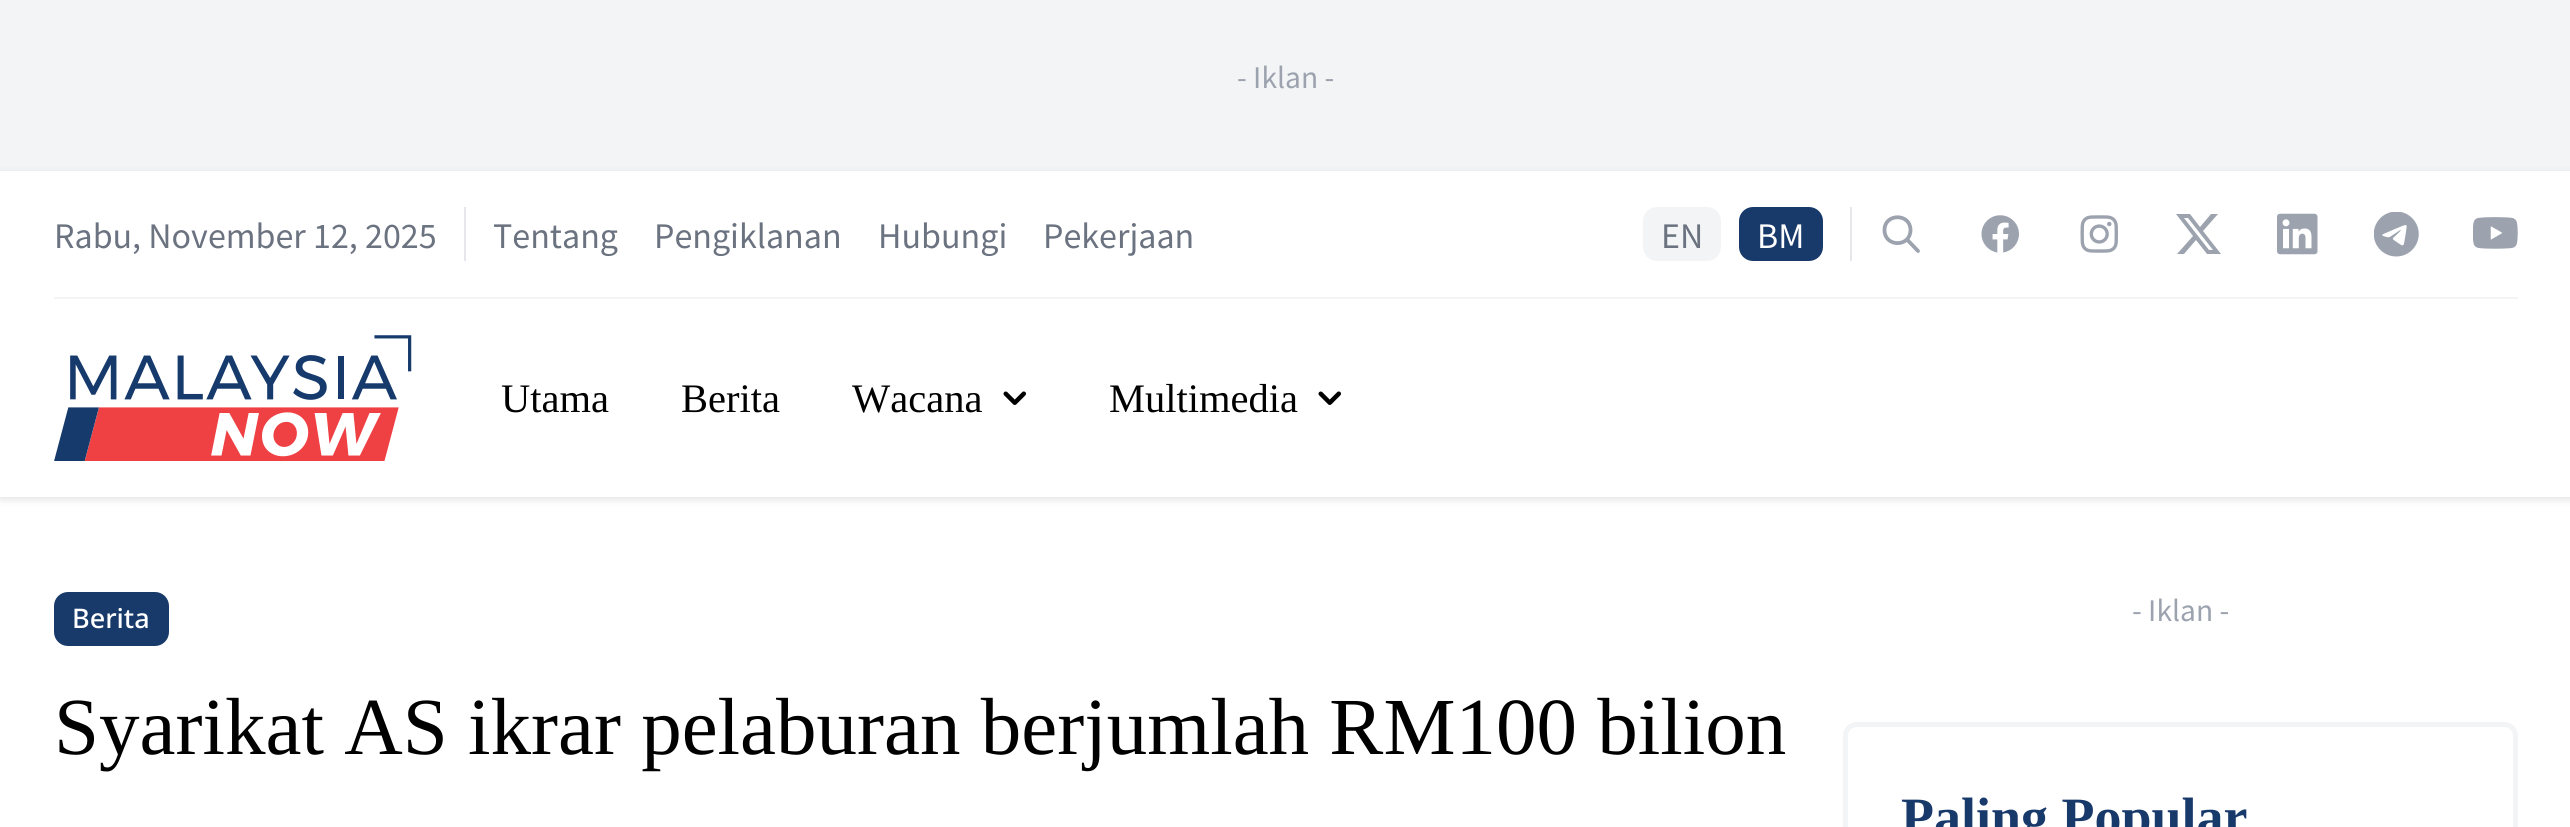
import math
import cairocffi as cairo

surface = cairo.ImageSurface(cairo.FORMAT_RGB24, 2570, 827)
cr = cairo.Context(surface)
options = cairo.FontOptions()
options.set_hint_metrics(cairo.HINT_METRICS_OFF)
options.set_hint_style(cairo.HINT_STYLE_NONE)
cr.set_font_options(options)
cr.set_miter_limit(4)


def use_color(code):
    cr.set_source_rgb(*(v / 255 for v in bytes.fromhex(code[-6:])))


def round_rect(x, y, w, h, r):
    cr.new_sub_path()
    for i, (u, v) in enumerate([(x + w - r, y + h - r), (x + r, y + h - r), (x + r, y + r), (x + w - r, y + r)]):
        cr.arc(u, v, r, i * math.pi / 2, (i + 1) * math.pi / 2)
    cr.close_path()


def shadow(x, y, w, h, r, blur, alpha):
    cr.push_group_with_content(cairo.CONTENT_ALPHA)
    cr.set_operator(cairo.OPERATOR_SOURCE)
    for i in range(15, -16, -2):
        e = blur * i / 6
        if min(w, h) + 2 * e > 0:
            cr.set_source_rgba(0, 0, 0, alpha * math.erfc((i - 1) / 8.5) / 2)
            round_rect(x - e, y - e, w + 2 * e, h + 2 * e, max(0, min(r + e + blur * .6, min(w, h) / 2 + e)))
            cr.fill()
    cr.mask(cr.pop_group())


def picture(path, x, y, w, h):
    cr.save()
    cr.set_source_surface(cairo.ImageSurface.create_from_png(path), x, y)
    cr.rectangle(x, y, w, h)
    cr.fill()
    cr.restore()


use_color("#ffffff")
cr.paint()
use_color("#f3f4f6")
cr.rectangle(0, 0, 2570, 171)
cr.fill()
cr.select_font_face("Source Sans Pro")
cr.set_font_size(31.5)
use_color("#9ca3af")
cr.move_to(1237, 88)
cr.show_text("- Iklan -")
cr.save()
cr.set_fill_rule(cairo.FILL_RULE_EVEN_ODD)
cr.new_path()
cr.move_to(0, 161)
cr.line_to(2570, 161)
cr.line_to(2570, 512)
cr.line_to(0, 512)
cr.close_path()
cr.move_to(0, 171)
cr.line_to(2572, 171)
cr.line_to(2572, 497)
cr.line_to(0, 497)
cr.close_path()
cr.clip()
use_color("#000000")
shadow(0, 173, 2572, 327, 0, 3.5, 0.1)
cr.restore()
use_color("#f3f4f6")
cr.rectangle(54, 297, 2464, 2)
cr.fill()
cr.set_font_size(36)
use_color("#6b7280")
cr.move_to(54, 248)
cr.show_text("Rabu, November 12, 2025")
use_color("#e5e7eb")
cr.rectangle(464, 207, 2, 54)
cr.fill()
use_color("#6b7280")
cr.move_to(493, 248)
cr.show_text("Tentang")
cr.move_to(654, 248)
cr.show_text("Pengiklanan")
cr.move_to(878, 248)
cr.show_text("Hubungi")
cr.move_to(1043, 248)
cr.show_text("Pekerjaan")
use_color("#f3f4f6")
round_rect(1643, 207, 78, 54, 14)
cr.fill()
use_color("#6b7280")
cr.move_to(1661, 248)
cr.show_text("EN")
use_color("#183a6b")
round_rect(1739, 207, 84, 54, 14)
cr.fill()
use_color("#ffffff")
cr.move_to(1757, 248)
cr.show_text("BM")
use_color("#e5e7eb")
cr.rectangle(1850, 207, 2, 54)
cr.fill()
cr.new_path()
cr.move_to(1918, 251)
cr.line_to(1907, 239.5)
cr.move_to(1910.5, 230)
cr.curve_to(1910.5, 247.5, 1884.5, 247.5, 1884.5, 230)
cr.curve_to(1884.5, 213, 1910.5, 213, 1910.5, 230)
cr.close_path()
use_color("#9ca3af")
cr.set_line_width(3.8)
cr.set_line_cap(cairo.LINE_CAP_ROUND)
cr.set_line_join(cairo.LINE_JOIN_ROUND)
cr.stroke()
picture("img1.png", 1981, 215, 38, 38)
picture("img2.png", 2080, 215, 38, 38)
cr.new_path()
cr.move_to(2211, 214)
cr.line_to(2218, 214)
cr.line_to(2203, 231)
cr.line_to(2221, 254)
cr.line_to(2207, 254)
cr.line_to(2196, 240)
cr.line_to(2184, 254)
cr.line_to(2177, 254)
cr.line_to(2193, 236)
cr.line_to(2176, 214)
cr.line_to(2190, 214)
cr.line_to(2200, 227)
cr.close_path()
cr.move_to(2209, 250)
cr.line_to(2213, 250)
cr.line_to(2188, 218)
cr.line_to(2184, 218)
cr.close_path()
cr.fill()
picture("img3.png", 2277, 213, 41, 42)
picture("img4.png", 2374, 212, 45, 45)
picture("img5.png", 2473, 217, 45, 32)
picture("img6.png", 54, 335, 358, 126)
cr.select_font_face("Liberation Serif")
cr.set_font_size(40.5)
use_color("#000000")
cr.move_to(501, 412)
cr.show_text("Utama")
cr.move_to(681, 412)
cr.show_text("Berita")
cr.move_to(852, 412)
cr.show_text("Wacana")
picture("img7.png", 1003, 391, 23, 14)
cr.move_to(1109, 412)
cr.show_text("Multimedia")
picture("img7.png", 1318, 391, 23, 14)
use_color("#183a6b")
round_rect(54, 592, 115, 54, 14)
cr.fill()
cr.select_font_face("Noto Sans Medium")
cr.set_font_size(27)
use_color("#ffffff")
cr.move_to(72, 628)
cr.show_text("Berita")
cr.select_font_face("Liberation Serif")
cr.set_font_size(81)
use_color("#000000")
cr.move_to(54, 754)
cr.show_text("Syarikat AS ikrar pelaburan berjumlah RM100 bilion")
cr.select_font_face("Source Sans Pro")
cr.set_font_size(31.5)
use_color("#9ca3af")
cr.move_to(2132, 621)
cr.show_text("- Iklan -")
round_rect(1845.5, 724.5, 670, 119, 11.5)
use_color("#f3f4f6")
cr.set_line_width(5)
cr.set_line_cap(cairo.LINE_CAP_BUTT)
cr.set_line_join(cairo.LINE_JOIN_MITER)
cr.stroke()
cr.select_font_face("Liberation Serif", cairo.FONT_SLANT_NORMAL, cairo.FONT_WEIGHT_BOLD)
cr.set_font_size(54)
use_color("#183a6b")
cr.move_to(1901, 835)
cr.show_text("Paling Popular")
surface.write_to_png("result.png")
